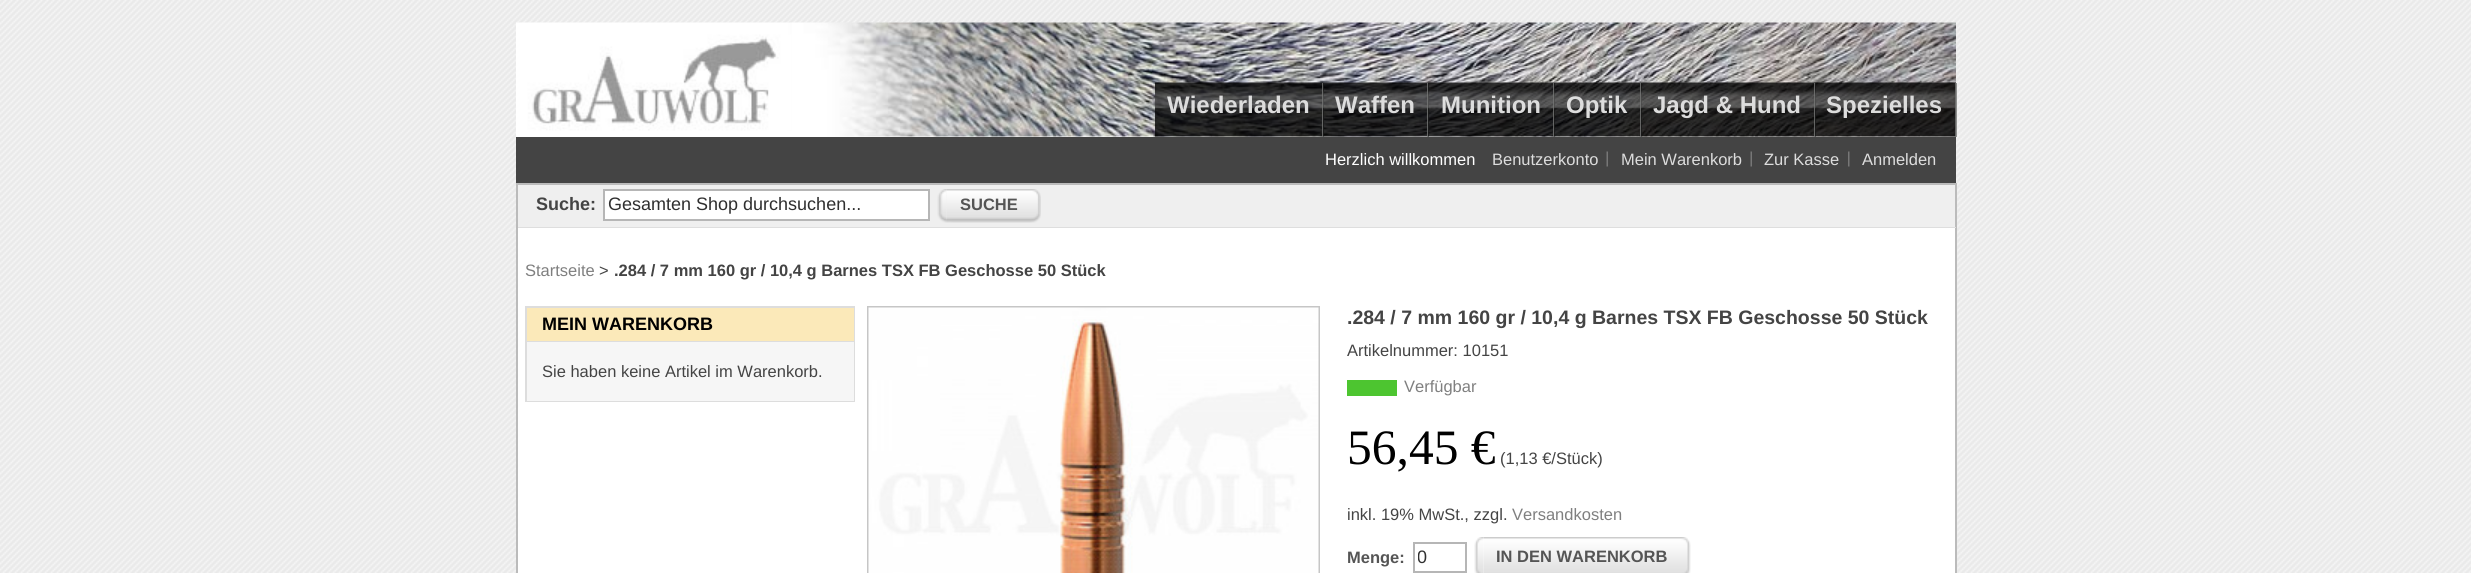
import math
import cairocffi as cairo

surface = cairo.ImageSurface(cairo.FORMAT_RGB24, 2471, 573)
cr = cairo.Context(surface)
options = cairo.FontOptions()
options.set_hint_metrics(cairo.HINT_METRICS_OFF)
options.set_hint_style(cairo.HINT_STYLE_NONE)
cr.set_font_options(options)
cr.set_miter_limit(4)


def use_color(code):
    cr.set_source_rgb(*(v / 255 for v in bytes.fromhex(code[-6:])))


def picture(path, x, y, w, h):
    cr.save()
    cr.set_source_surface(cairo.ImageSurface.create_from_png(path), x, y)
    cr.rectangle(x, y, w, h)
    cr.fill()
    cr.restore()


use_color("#ffffff")
cr.paint()
picture("img1.png", 0, 0, 2471, 573)
use_color("#ffffff")
cr.rectangle(516, 131, 1440, 6)
cr.fill()
picture("img2.png", 792, 22, 1164, 115)
picture("img3.png", 516, 22, 276, 109)
picture("img4.png", 1155, 82, 168, 55)
cr.set_source_rgba(0.463, 0.467, 0.463, 0.8)
cr.rectangle(1322, 83, 2, 54)
cr.fill()
cr.select_font_face("Liberation Sans", cairo.FONT_SLANT_NORMAL, cairo.FONT_WEIGHT_BOLD)
cr.set_font_size(24)
use_color("#dddddd")
cr.move_to(1167, 113)
cr.show_text("Wiederladen")
picture("img5.png", 1323, 82, 105, 55)
cr.set_source_rgba(0.463, 0.467, 0.463, 0.8)
cr.rectangle(1427, 83, 2, 54)
cr.fill()
use_color("#dddddd")
cr.move_to(1335, 113)
cr.show_text("Waffen")
picture("img6.png", 1428, 82, 126, 55)
cr.set_source_rgba(0.463, 0.467, 0.463, 0.8)
cr.rectangle(1553, 83, 2, 54)
cr.fill()
use_color("#dddddd")
cr.move_to(1441, 113)
cr.show_text("Munition")
picture("img7.png", 1554, 82, 87, 55)
cr.set_source_rgba(0.463, 0.467, 0.463, 0.8)
cr.rectangle(1640, 83, 2, 54)
cr.fill()
use_color("#dddddd")
cr.move_to(1566, 113)
cr.show_text("Optik")
picture("img8.png", 1641, 82, 174, 55)
cr.set_source_rgba(0.463, 0.467, 0.463, 0.8)
cr.rectangle(1814, 83, 2, 54)
cr.fill()
use_color("#dddddd")
cr.move_to(1653, 113)
cr.show_text("Jagd & Hund")
picture("img9.png", 1815, 82, 141, 55)
cr.set_source_rgba(0.463, 0.467, 0.463, 0.8)
cr.rectangle(1955, 83, 2, 54)
cr.fill()
use_color("#dddddd")
cr.move_to(1826, 113)
cr.show_text("Spezielles")
use_color("#444444")
cr.rectangle(516, 137, 1440, 46)
cr.fill()
cr.select_font_face("Liberation Sans")
cr.set_font_size(16.5)
use_color("#ffffff")
cr.move_to(1325, 165)
cr.show_text("Herzlich willkommen")
use_color("#dddddd")
cr.move_to(1492, 165)
cr.show_text("Benutzerkonto")
picture("img10.png", 1606, 151, 2, 16)
cr.move_to(1621, 165)
cr.show_text("Mein Warenkorb")
picture("img10.png", 1750, 151, 2, 16)
cr.move_to(1764, 165)
cr.show_text("Zur Kasse")
picture("img11.png", 1848, 151, 2, 16)
cr.move_to(1862, 165)
cr.show_text("Anmelden")
use_color("#efefef")
cr.rectangle(518, 185, 1437, 42)
cr.fill()
use_color("#bbbbbb")
cr.rectangle(516, 183, 1440, 2)
cr.fill()
cr.rectangle(1955, 183, 2, 390)
cr.fill()
use_color("#dedede")
cr.rectangle(516, 227, 1440, 1)
cr.fill()
use_color("#bbbbbb")
cr.rectangle(516, 183, 2, 390)
cr.fill()
cr.select_font_face("Liberation Sans", cairo.FONT_SLANT_NORMAL, cairo.FONT_WEIGHT_BOLD)
cr.set_font_size(18)
use_color("#444444")
cr.move_to(536, 210)
cr.show_text("Suche:")
use_color("#ffffff")
cr.rectangle(604, 190, 325, 30)
cr.fill_preserve()
use_color("#b6b6b6")
cr.stroke()
cr.select_font_face("Liberation Sans")
use_color("#2f2f2f")
cr.move_to(608, 210)
cr.show_text("Gesamten Shop durchsuchen...")
picture("img12.png", 937, 189, 10, 34)
picture("img13.png", 946, 189, 95, 34)
cr.select_font_face("Liberation Sans", cairo.FONT_SLANT_NORMAL, cairo.FONT_WEIGHT_BOLD)
cr.set_font_size(16.5)
use_color("#555555")
cr.move_to(960, 210)
cr.show_text("SUCHE")
use_color("#ffffff")
cr.rectangle(518, 228, 1437, 345)
cr.fill()
cr.select_font_face("Liberation Sans")
use_color("#7f7f7f")
cr.move_to(525, 276)
cr.show_text("Startseite")
use_color("#444444")
cr.move_to(599, 276)
cr.show_text(">")
cr.select_font_face("Liberation Sans", cairo.FONT_SLANT_NORMAL, cairo.FONT_WEIGHT_BOLD)
cr.move_to(614, 276)
cr.show_text(".284 / 7 mm 160 gr / 10,4 g Barnes TSX FB Geschosse 50 Stück")
cr.rectangle(526, 307, 328, 94)
use_color("#dddddd")
cr.stroke()
use_color("#fbe9b9")
cr.rectangle(527, 308, 327, 33)
cr.fill()
use_color("#dddddd")
cr.rectangle(527, 341, 327, 1)
cr.fill()
cr.set_font_size(18)
use_color("#000000")
cr.move_to(542, 330)
cr.show_text("MEIN WARENKORB")
use_color("#f6f6f6")
cr.rectangle(527, 342, 327, 59)
cr.fill()
cr.select_font_face("Liberation Sans")
cr.set_font_size(16.5)
use_color("#444444")
cr.move_to(542, 377)
cr.show_text("Sie haben keine Artikel im Warenkorb.")
cr.rectangle(868, 307, 451, 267)
use_color("#c6c6c6")
cr.stroke()
picture("img14.png", 868, 307, 451, 266)
cr.select_font_face("Liberation Sans", cairo.FONT_SLANT_NORMAL, cairo.FONT_WEIGHT_BOLD)
cr.set_font_size(19.5)
use_color("#444444")
cr.move_to(1347, 324)
cr.show_text(".284 / 7 mm 160 gr / 10,4 g Barnes TSX FB Geschosse 50 Stück")
cr.select_font_face("Liberation Sans")
cr.set_font_size(16.5)
cr.move_to(1347, 356)
cr.show_text("Artikelnummer: 10151")
use_color("#4dc530")
cr.rectangle(1347, 380, 50, 16)
cr.fill()
use_color("#7f7f7f")
cr.move_to(1404, 392)
cr.show_text("Verfügbar")
cr.select_font_face("Liberation Serif")
cr.set_font_size(49.5)
use_color("#000000")
cr.move_to(1347, 464)
cr.show_text("56,45 €")
cr.select_font_face("Liberation Sans")
cr.set_font_size(16.5)
use_color("#444444")
cr.move_to(1500, 464)
cr.show_text("(1,13 €/Stück)")
cr.move_to(1347, 520)
cr.show_text("inkl. 19% MwSt., zzgl.")
use_color("#7f7f7f")
cr.move_to(1512, 520)
cr.show_text("Versandkosten")
cr.select_font_face("Liberation Sans", cairo.FONT_SLANT_NORMAL, cairo.FONT_WEIGHT_BOLD)
use_color("#555555")
cr.move_to(1347, 563)
cr.show_text("Menge:")
cr.rectangle(1414, 543, 52, 29)
use_color("#b6b6b6")
cr.stroke()
cr.save()
cr.rectangle(1418, 546, 45, 23)
cr.clip()
cr.select_font_face("Liberation Sans")
cr.set_font_size(18)
use_color("#2f2f2f")
cr.move_to(1417, 563)
cr.show_text("0")
cr.restore()
picture("img15.png", 1474, 537, 10, 36)
picture("img16.png", 1483, 537, 208, 36)
use_color("#555555")
cr.move_to(1496, 562)
cr.show_text("IN DEN WARENKORB")
surface.write_to_png("result.png")
